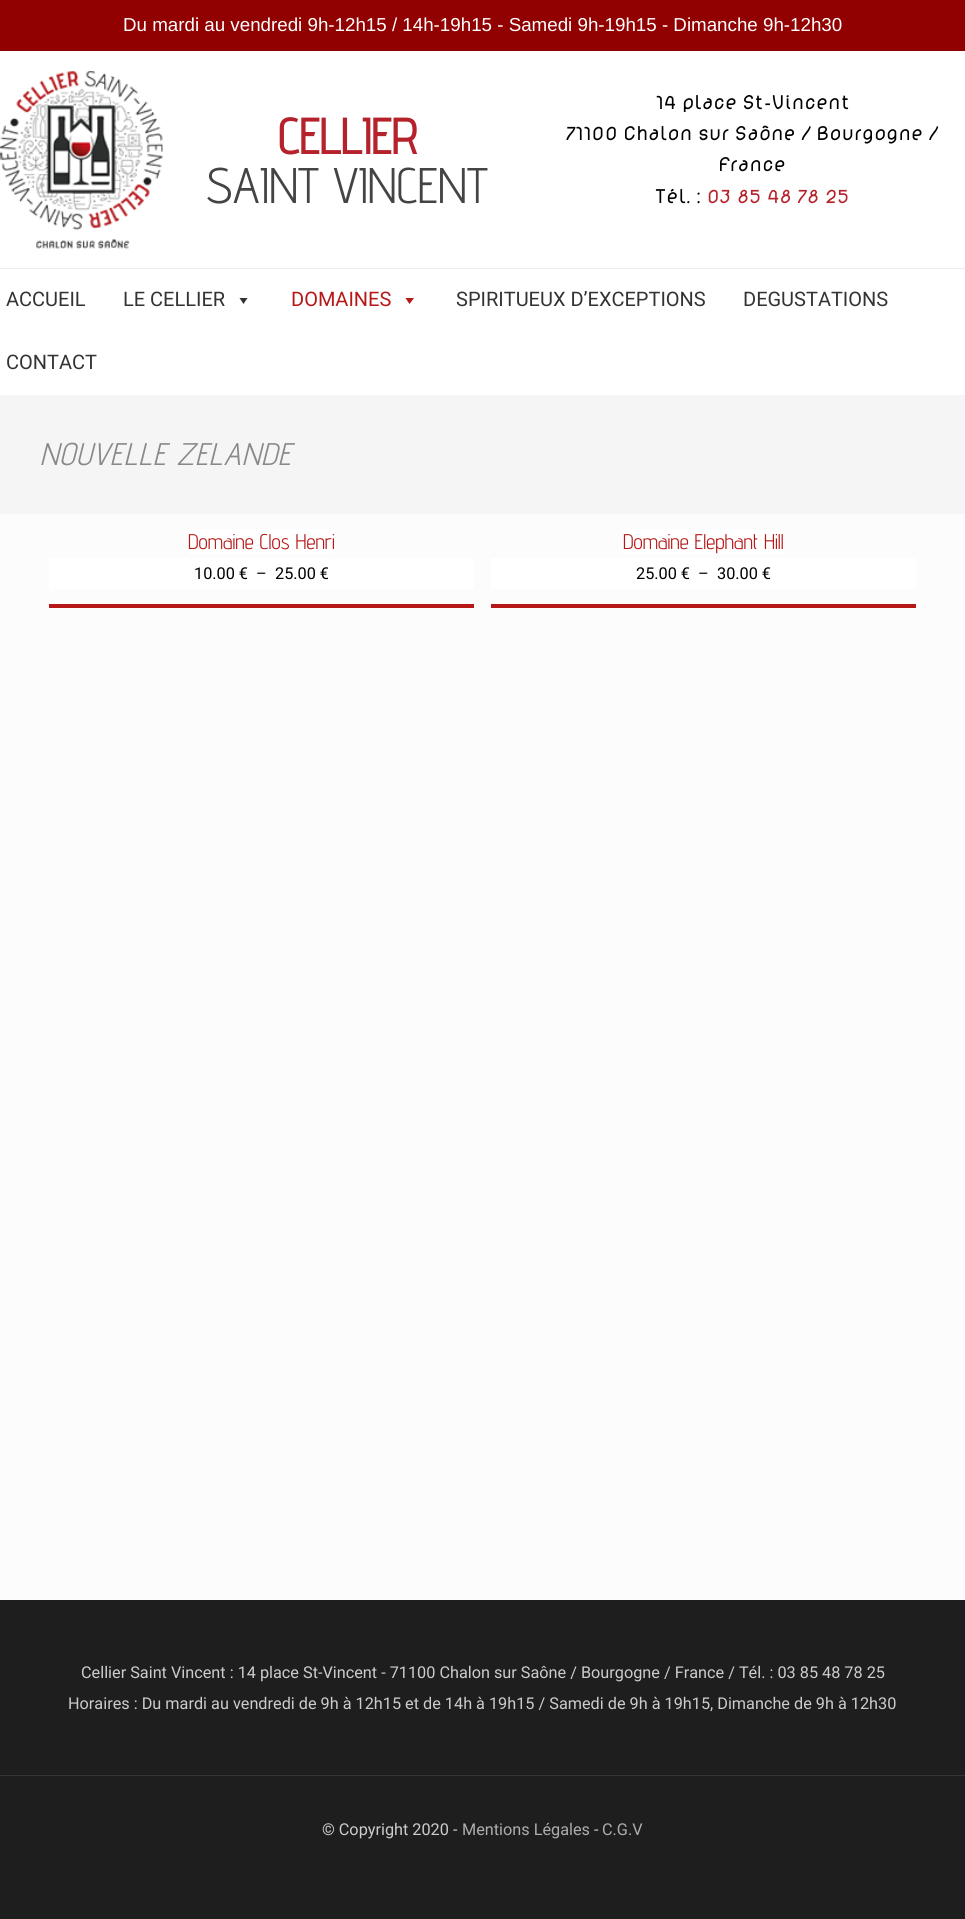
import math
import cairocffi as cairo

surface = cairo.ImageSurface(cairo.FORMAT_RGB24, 965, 1919)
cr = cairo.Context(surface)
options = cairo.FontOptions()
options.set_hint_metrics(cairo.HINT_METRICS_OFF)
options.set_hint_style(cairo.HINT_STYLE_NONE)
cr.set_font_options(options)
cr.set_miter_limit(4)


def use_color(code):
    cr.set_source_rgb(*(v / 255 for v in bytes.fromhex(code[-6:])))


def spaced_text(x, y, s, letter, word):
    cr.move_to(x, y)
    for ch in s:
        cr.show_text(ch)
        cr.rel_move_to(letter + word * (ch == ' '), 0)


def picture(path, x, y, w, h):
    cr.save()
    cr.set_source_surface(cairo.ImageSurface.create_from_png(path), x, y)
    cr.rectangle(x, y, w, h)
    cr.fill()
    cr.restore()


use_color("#fcfcfc")
cr.paint()
use_color("#910101")
cr.rectangle(0, 0, 965, 51)
cr.fill()
cr.select_font_face("Liberation Sans")
cr.set_font_size(18.75)
use_color("#ffffff")
cr.move_to(123, 31)
cr.show_text("Du mardi au vendredi 9h-12h15 / 14h-19h15 - Samedi 9h-19h15 - Dimanche 9h-12h30")
cr.rectangle(0, 51, 965, 344)
cr.fill()
use_color("#ebebeb")
cr.rectangle(0, 268, 965, 1)
cr.fill()
picture("img1.png", 0, 71, 163, 178)
cr.select_font_face("Advent Pro", cairo.FONT_SLANT_NORMAL, cairo.FONT_WEIGHT_BOLD)
cr.set_font_size(50)
use_color("#b5222b")
cr.move_to(278, 154)
cr.show_text("CELLIER")
cr.select_font_face("Advent Pro")
use_color("#444444")
cr.move_to(206, 203)
cr.show_text("SAINT VINCENT")
cr.select_font_face("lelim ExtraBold")
cr.set_font_size(22.5)
use_color("#000000")
cr.move_to(656, 109)
cr.show_text("14 place St-Vincent")
cr.move_to(566, 140)
cr.show_text("71100 Chalon sur Saône / Bourgogne /")
cr.move_to(718, 171)
cr.show_text("France")
cr.move_to(655, 203)
cr.show_text("Tél. :")
use_color("#b5222b")
cr.move_to(707, 203)
cr.show_text("03 85 48 78 25")
cr.select_font_face("Roboto")
cr.set_font_size(20)
use_color("#333333")
cr.move_to(6, 306)
cr.show_text("ACCUEIL")
cr.move_to(123, 306)
cr.show_text("LE CELLIER")
cr.new_path()
cr.move_to(247.5, 298)
cr.line_to(243.5, 304)
cr.line_to(239.5, 298)
cr.close_path()
cr.fill()
use_color("#b61817")
cr.move_to(291, 306)
cr.show_text("DOMAINES")
cr.new_path()
cr.move_to(414, 298)
cr.line_to(409.5, 304)
cr.line_to(405.5, 298)
cr.close_path()
cr.fill()
use_color("#333333")
cr.move_to(456, 306)
cr.show_text("SPIRITUEUX D’EXCEPTIONS")
cr.move_to(743, 306)
cr.show_text("DEGUSTATIONS")
cr.move_to(6, 369)
cr.show_text("CONTACT")
use_color("#f5f5f5")
cr.rectangle(0, 395, 965, 119)
cr.fill()
cr.select_font_face("Advent Pro", cairo.FONT_SLANT_ITALIC)
cr.set_font_size(31.25)
use_color("#888888")
spaced_text(40, 465, "NOUVELLE ZELANDE", 1.25, 0)
use_color("#b61817")
cr.rectangle(49, 604, 425, 4)
cr.fill()
use_color("#ffffff")
cr.rectangle(188, 529, 147, 25)
cr.fill()
cr.select_font_face("Advent Pro")
cr.set_font_size(21.25)
use_color("#b61817")
cr.move_to(188, 549)
cr.show_text("Domaine Clos Henri")
use_color("#ffffff")
cr.rectangle(49, 558, 425, 31)
cr.fill()
cr.select_font_face("Roboto")
cr.set_font_size(16.25)
use_color("#000000")
cr.move_to(194, 579)
cr.show_text("10.00 €")
cr.move_to(256, 579)
cr.show_text("–")
cr.move_to(275, 579)
cr.show_text("25.00 €")
use_color("#b61817")
cr.rectangle(491, 604, 425, 4)
cr.fill()
use_color("#ffffff")
cr.rectangle(624, 529, 160, 25)
cr.fill()
cr.select_font_face("Advent Pro")
cr.set_font_size(21.25)
use_color("#b61817")
cr.move_to(623, 549)
cr.show_text("Domaine Elephant Hill")
use_color("#ffffff")
cr.rectangle(491, 558, 425, 31)
cr.fill()
cr.select_font_face("Roboto")
cr.set_font_size(16.25)
use_color("#000000")
cr.move_to(636, 579)
cr.show_text("25.00 €")
cr.move_to(698, 579)
cr.show_text("–")
cr.move_to(717, 579)
cr.show_text("30.00 €")
use_color("#1e1e1e")
cr.rectangle(0, 1600, 965, 319)
cr.fill()
use_color("#cccccc")
cr.move_to(81, 1678)
cr.show_text("Cellier Saint Vincent : 14 place St-Vincent - 71100 Chalon sur Saône / Bourgogne / France / Tél. : 03 85 48 78 25")
cr.move_to(68, 1709)
cr.show_text("Horaires : Du mardi au vendredi de 9h à 12h15 et de 14h à 19h15 / Samedi de 9h à 19h15, Dimanche de 9h à 12h30")
use_color("#353535")
cr.rectangle(0, 1775, 965, 1)
cr.fill()
use_color("#cccccc")
cr.move_to(322, 1835)
cr.show_text("© Copyright 2020 -")
use_color("#adadad")
cr.move_to(462, 1835)
cr.show_text("Mentions Légales")
use_color("#cccccc")
cr.move_to(594, 1835)
cr.show_text("-")
use_color("#adadad")
cr.move_to(602, 1835)
cr.show_text("C.G.V")
surface.write_to_png("result.png")
